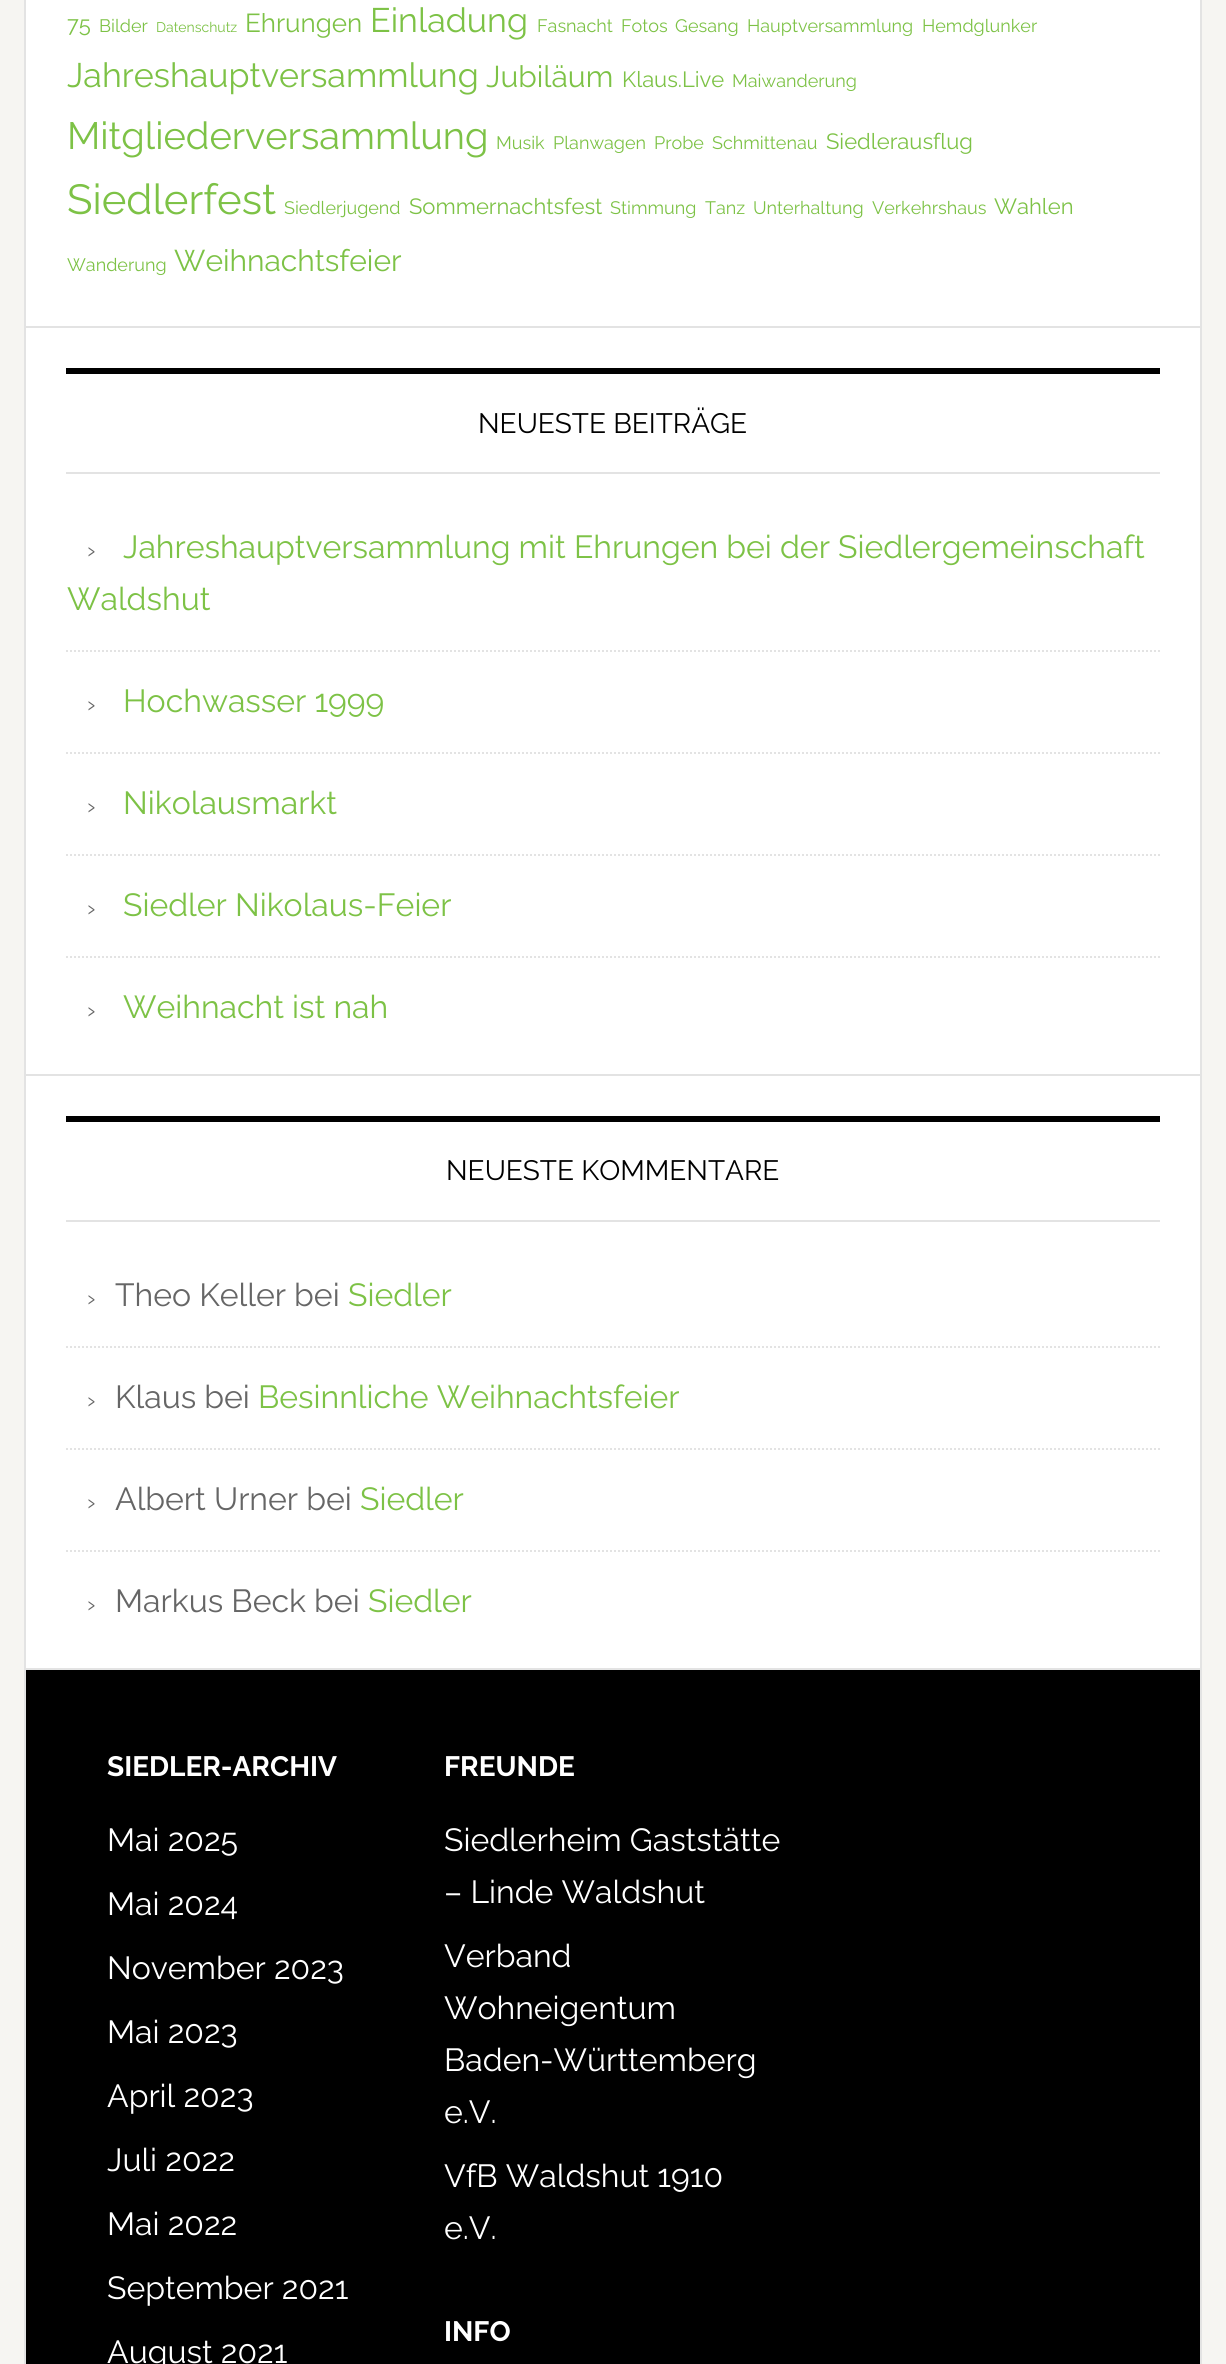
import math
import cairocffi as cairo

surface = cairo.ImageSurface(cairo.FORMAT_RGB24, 1226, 2364)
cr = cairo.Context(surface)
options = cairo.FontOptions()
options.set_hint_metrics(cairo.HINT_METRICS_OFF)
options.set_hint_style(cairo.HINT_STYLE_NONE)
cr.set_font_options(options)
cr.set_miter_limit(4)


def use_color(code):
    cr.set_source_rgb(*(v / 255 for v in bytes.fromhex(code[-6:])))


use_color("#f6f5f2")
cr.paint()
use_color("#ffffff")
cr.rectangle(26, 0, 1174, 1668)
cr.fill()
cr.rectangle(25, -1, 1176, 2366)
use_color("#e3e3e3")
cr.stroke()
cr.rectangle(26, 326, 1174, 2)
cr.fill()
cr.select_font_face("Raleway")
cr.set_font_size(22)
use_color("#7dc246")
cr.move_to(67, 32)
cr.show_text("75")
cr.set_font_size(18)
cr.move_to(99, 32)
cr.show_text("Bilder")
cr.set_font_size(14)
cr.move_to(156, 32)
cr.show_text("Datenschutz")
cr.set_font_size(26)
cr.move_to(245, 32)
cr.show_text("Ehrungen")
cr.set_font_size(34)
cr.move_to(370, 32)
cr.show_text("Einladung")
cr.set_font_size(18)
cr.move_to(537, 32)
cr.show_text("Fasnacht")
cr.move_to(621, 32)
cr.show_text("Fotos")
cr.move_to(675, 32)
cr.show_text("Gesang")
cr.move_to(747, 32)
cr.show_text("Hauptversammlung")
cr.move_to(922, 32)
cr.show_text("Hemdglunker")
cr.set_font_size(34)
cr.move_to(67, 87)
cr.show_text("Jahreshauptversammlung")
cr.set_font_size(30)
cr.move_to(486, 87)
cr.show_text("Jubiläum")
cr.set_font_size(22)
cr.move_to(622, 87)
cr.show_text("Klaus.Live")
cr.set_font_size(18)
cr.move_to(732, 87)
cr.show_text("Maiwanderung")
cr.set_font_size(38)
cr.move_to(67, 149)
cr.show_text("Mitgliederversammlung")
cr.set_font_size(18)
cr.move_to(496, 149)
cr.show_text("Musik")
cr.move_to(553, 149)
cr.show_text("Planwagen")
cr.move_to(654, 149)
cr.show_text("Probe")
cr.move_to(712, 149)
cr.show_text("Schmittenau")
cr.set_font_size(22)
cr.move_to(826, 149)
cr.show_text("Siedlerausflug")
cr.set_font_size(42)
cr.move_to(67, 214)
cr.show_text("Siedlerfest")
cr.set_font_size(18)
cr.move_to(284, 214)
cr.show_text("Siedlerjugend")
cr.set_font_size(22)
cr.move_to(409, 214)
cr.show_text("Sommernachtsfest")
cr.set_font_size(18)
cr.move_to(610, 214)
cr.show_text("Stimmung")
cr.move_to(705, 214)
cr.show_text("Tanz")
cr.move_to(753, 214)
cr.show_text("Unterhaltung")
cr.move_to(872, 214)
cr.show_text("Verkehrshaus")
cr.set_font_size(22)
cr.move_to(994, 214)
cr.show_text("Wahlen")
cr.set_font_size(18)
cr.move_to(67, 271)
cr.show_text("Wanderung")
cr.set_font_size(30)
cr.move_to(174, 271)
cr.show_text("Weihnachtsfeier")
use_color("#e3e3e3")
cr.rectangle(26, 1074, 1174, 2)
cr.fill()
use_color("#000000")
cr.rectangle(66, 368, 1094, 6)
cr.fill()
use_color("#e3e3e3")
cr.rectangle(66, 472, 1094, 2)
cr.fill()
cr.set_font_size(28)
use_color("#000000")
cr.move_to(478, 433)
cr.show_text("NEUESTE BEITRÄGE")
cr.new_path()
cr.move_to(66, 651)
cr.line_to(1160, 651)
use_color("#e3e3e3")
cr.set_dash([2, 2])
cr.stroke()
cr.set_font_size(24)
use_color("#666666")
cr.move_to(87, 558)
cr.show_text("›")
cr.set_font_size(32)
use_color("#7dc246")
cr.move_to(123, 558)
cr.show_text("Jahreshauptversammlung mit Ehrungen bei der Siedlergemeinschaft")
cr.move_to(67, 610)
cr.show_text("Waldshut")
cr.new_path()
cr.move_to(66, 753)
cr.line_to(1160, 753)
use_color("#e3e3e3")
cr.stroke()
cr.set_font_size(24)
use_color("#666666")
cr.move_to(87, 712)
cr.show_text("›")
cr.set_font_size(32)
use_color("#7dc246")
cr.move_to(123, 712)
cr.show_text("Hochwasser 1999")
cr.new_path()
cr.move_to(66, 855)
cr.line_to(1160, 855)
use_color("#e3e3e3")
cr.stroke()
cr.set_font_size(24)
use_color("#666666")
cr.move_to(87, 814)
cr.show_text("›")
cr.set_font_size(32)
use_color("#7dc246")
cr.move_to(123, 814)
cr.show_text("Nikolausmarkt")
cr.new_path()
cr.move_to(66, 957)
cr.line_to(1160, 957)
use_color("#e3e3e3")
cr.stroke()
cr.set_font_size(24)
use_color("#666666")
cr.move_to(87, 916)
cr.show_text("›")
cr.set_font_size(32)
use_color("#7dc246")
cr.move_to(123, 916)
cr.show_text("Siedler Nikolaus-Feier")
cr.set_font_size(24)
use_color("#666666")
cr.move_to(87, 1018)
cr.show_text("›")
cr.set_font_size(32)
use_color("#7dc246")
cr.move_to(123, 1018)
cr.show_text("Weihnacht ist nah")
use_color("#e3e3e3")
cr.rectangle(26, 1668, 1174, 2)
cr.fill()
use_color("#000000")
cr.rectangle(66, 1116, 1094, 6)
cr.fill()
use_color("#e3e3e3")
cr.rectangle(66, 1220, 1094, 2)
cr.fill()
cr.set_font_size(28)
use_color("#000000")
cr.move_to(446, 1180)
cr.show_text("NEUESTE KOMMENTARE")
cr.new_path()
cr.move_to(66, 1347)
cr.line_to(1160, 1347)
use_color("#e3e3e3")
cr.stroke()
cr.set_font_size(24)
use_color("#666666")
cr.move_to(87, 1306)
cr.show_text("›")
cr.set_font_size(32)
cr.move_to(115, 1306)
cr.show_text("Theo Keller bei")
use_color("#7dc246")
cr.move_to(348, 1306)
cr.show_text("Siedler")
cr.new_path()
cr.move_to(66, 1449)
cr.line_to(1160, 1449)
use_color("#e3e3e3")
cr.stroke()
cr.set_font_size(24)
use_color("#666666")
cr.move_to(87, 1408)
cr.show_text("›")
cr.set_font_size(32)
cr.move_to(115, 1408)
cr.show_text("Klaus bei")
use_color("#7dc246")
cr.move_to(258, 1408)
cr.show_text("Besinnliche Weihnachtsfeier")
cr.new_path()
cr.move_to(66, 1551)
cr.line_to(1160, 1551)
use_color("#e3e3e3")
cr.stroke()
cr.set_font_size(24)
use_color("#666666")
cr.move_to(87, 1510)
cr.show_text("›")
cr.set_font_size(32)
cr.move_to(115, 1510)
cr.show_text("Albert Urner bei")
use_color("#7dc246")
cr.move_to(360, 1510)
cr.show_text("Siedler")
cr.set_font_size(24)
use_color("#666666")
cr.move_to(87, 1612)
cr.show_text("›")
cr.set_font_size(32)
cr.move_to(115, 1612)
cr.show_text("Markus Beck bei")
use_color("#7dc246")
cr.move_to(368, 1612)
cr.show_text("Siedler")
use_color("#000000")
cr.rectangle(26, 1670, 1174, 694)
cr.fill()
cr.select_font_face("Raleway", cairo.FONT_SLANT_NORMAL, cairo.FONT_WEIGHT_BOLD)
cr.set_font_size(28)
use_color("#ffffff")
cr.move_to(107, 1776)
cr.show_text("SIEDLER-ARCHIV")
cr.select_font_face("Raleway")
cr.set_font_size(32)
cr.move_to(107, 1851)
cr.show_text("Mai 2025")
cr.move_to(107, 1915)
cr.show_text("Mai 2024")
cr.move_to(107, 1979)
cr.show_text("November 2023")
cr.move_to(107, 2043)
cr.show_text("Mai 2023")
cr.move_to(107, 2107)
cr.show_text("April 2023")
cr.move_to(107, 2171)
cr.show_text("Juli 2022")
cr.move_to(107, 2235)
cr.show_text("Mai 2022")
cr.move_to(107, 2299)
cr.show_text("September 2021")
cr.move_to(107, 2363)
cr.show_text("August 2021")
cr.select_font_face("Raleway", cairo.FONT_SLANT_NORMAL, cairo.FONT_WEIGHT_BOLD)
cr.set_font_size(28)
cr.move_to(444, 1776)
cr.show_text("FREUNDE")
cr.select_font_face("Raleway")
cr.set_font_size(32)
cr.move_to(444, 1851)
cr.show_text("Siedlerheim Gaststätte")
cr.move_to(444, 1903)
cr.show_text("– Linde Waldshut")
cr.move_to(444, 1967)
cr.show_text("Verband")
cr.move_to(444, 2019)
cr.show_text("Wohneigentum")
cr.move_to(444, 2071)
cr.show_text("Baden-Württemberg")
cr.move_to(444, 2123)
cr.show_text("e.V.")
cr.move_to(444, 2187)
cr.show_text("VfB Waldshut 1910")
cr.move_to(444, 2239)
cr.show_text("e.V.")
cr.select_font_face("Raleway", cairo.FONT_SLANT_NORMAL, cairo.FONT_WEIGHT_BOLD)
cr.set_font_size(28)
cr.move_to(444, 2341)
cr.show_text("INFO")
surface.write_to_png("result.png")
